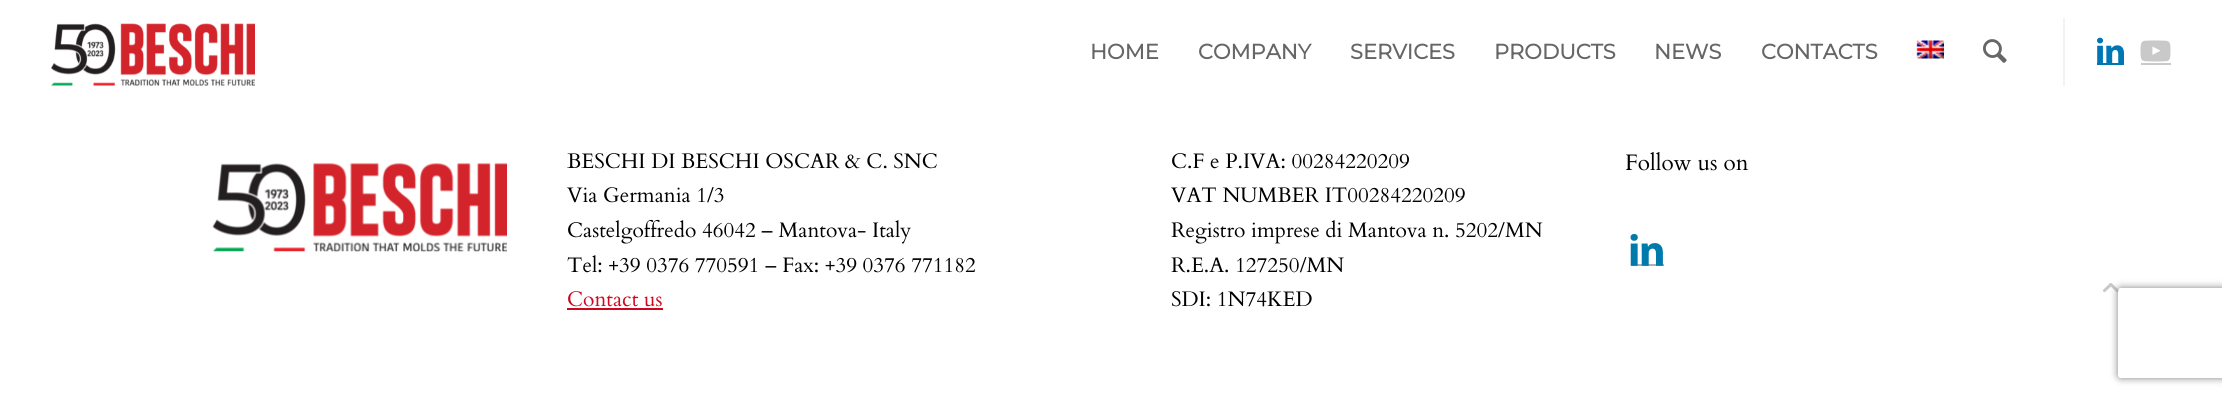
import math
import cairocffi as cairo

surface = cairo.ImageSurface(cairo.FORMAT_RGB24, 2222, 399)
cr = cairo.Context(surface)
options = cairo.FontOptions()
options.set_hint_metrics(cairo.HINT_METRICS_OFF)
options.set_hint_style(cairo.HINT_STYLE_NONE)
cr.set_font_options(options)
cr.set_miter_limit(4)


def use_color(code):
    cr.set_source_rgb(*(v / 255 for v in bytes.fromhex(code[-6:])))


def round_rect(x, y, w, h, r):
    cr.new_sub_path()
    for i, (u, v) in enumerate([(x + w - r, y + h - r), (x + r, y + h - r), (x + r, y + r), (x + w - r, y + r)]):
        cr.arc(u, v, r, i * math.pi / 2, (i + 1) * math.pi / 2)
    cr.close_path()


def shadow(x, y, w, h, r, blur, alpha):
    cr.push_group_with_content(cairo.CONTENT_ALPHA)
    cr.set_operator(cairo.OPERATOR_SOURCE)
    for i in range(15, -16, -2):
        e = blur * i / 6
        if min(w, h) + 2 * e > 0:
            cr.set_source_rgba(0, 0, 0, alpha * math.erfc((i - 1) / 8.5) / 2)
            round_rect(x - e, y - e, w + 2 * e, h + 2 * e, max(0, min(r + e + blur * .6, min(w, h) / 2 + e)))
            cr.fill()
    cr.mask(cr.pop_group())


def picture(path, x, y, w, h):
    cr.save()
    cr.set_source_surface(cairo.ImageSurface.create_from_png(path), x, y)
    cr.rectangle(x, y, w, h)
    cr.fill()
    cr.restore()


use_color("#ffffff")
cr.paint()
picture("img1.png", 51, 23, 204, 63)
use_color("#f2f2f2")
cr.rectangle(2063, 18, 2, 68)
cr.fill()
cr.select_font_face("Montserrat", cairo.FONT_SLANT_NORMAL, cairo.FONT_WEIGHT_BOLD)
cr.set_font_size(21)
use_color("#666666")
cr.move_to(1090, 59)
cr.show_text("HOME")
cr.move_to(1198, 59)
cr.show_text("COMPANY")
cr.move_to(1350, 59)
cr.show_text("SERVICES")
cr.move_to(1494, 59)
cr.show_text("PRODUCTS")
cr.move_to(1654, 59)
cr.show_text("NEWS")
cr.move_to(1761, 59)
cr.show_text("CONTACTS")
picture("img2.png", 1916, 40, 28, 19)
picture("img3.png", 1983, 39, 24, 24)
picture("img4.png", 2097, 37, 27, 26)
use_color("#0077b5")
cr.rectangle(2097, 63, 27, 2)
cr.fill()
picture("img5.png", 2140, 40, 31, 22)
use_color("#c9c9c9")
cr.rectangle(2141, 63, 30, 2)
cr.fill()
picture("img6.png", 212, 162, 295, 90)
cr.select_font_face("Cardo")
use_color("#000000")
cr.move_to(567, 168)
cr.show_text("BESCHI DI BESCHI OSCAR & C. SNC")
cr.move_to(567, 202)
cr.show_text("Via Germania 1/3")
cr.move_to(567, 237)
cr.show_text("Castelgoffredo 46042 – Mantova- Italy")
cr.move_to(567, 272)
cr.show_text("Tel: +39 0376 770591 – Fax: +39 0376 771182")
use_color("#cd071e")
cr.move_to(567, 306)
cr.show_text("Contact us")
cr.rectangle(567, 308, 96, 2)
cr.fill()
use_color("#000000")
cr.move_to(1171, 168)
cr.show_text("C.F e P.IVA: 00284220209")
cr.move_to(1171, 202)
cr.show_text("VAT NUMBER IT00284220209")
cr.move_to(1171, 237)
cr.show_text("Registro imprese di Mantova n. 5202/MN")
cr.move_to(1171, 272)
cr.show_text("R.E.A. 127250/MN")
cr.move_to(1171, 306)
cr.show_text("SDI: 1N74KED")
cr.set_font_size(22.5)
cr.move_to(1625, 170)
cr.show_text("Follow us on")
use_color("#b0b0b0")
cr.rectangle(1631, 264, 33, 2)
cr.fill()
picture("img7.png", 1630, 233, 33, 33)
picture("img8.png", 2103, 283, 16, 10)
cr.save()
cr.set_fill_rule(cairo.FILL_RULE_EVEN_ODD)
cr.new_path()
cr.move_to(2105, 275)
cr.line_to(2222, 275)
cr.line_to(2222, 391)
cr.line_to(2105, 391)
cr.close_path()
cr.move_to(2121, 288)
cr.line_to(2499, 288)
cr.curve_to(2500.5, 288, 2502, 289.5, 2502, 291)
cr.line_to(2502, 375)
cr.curve_to(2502, 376.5, 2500.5, 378, 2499, 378)
cr.line_to(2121, 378)
cr.curve_to(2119.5, 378, 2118, 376.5, 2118, 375)
cr.line_to(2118, 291)
cr.curve_to(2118, 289.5, 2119.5, 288, 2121, 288)
cr.close_path()
cr.clip()
use_color("#808080")
shadow(2118, 288, 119, 90, 3, 4, 1)
cr.restore()
surface.write_to_png("result.png")
